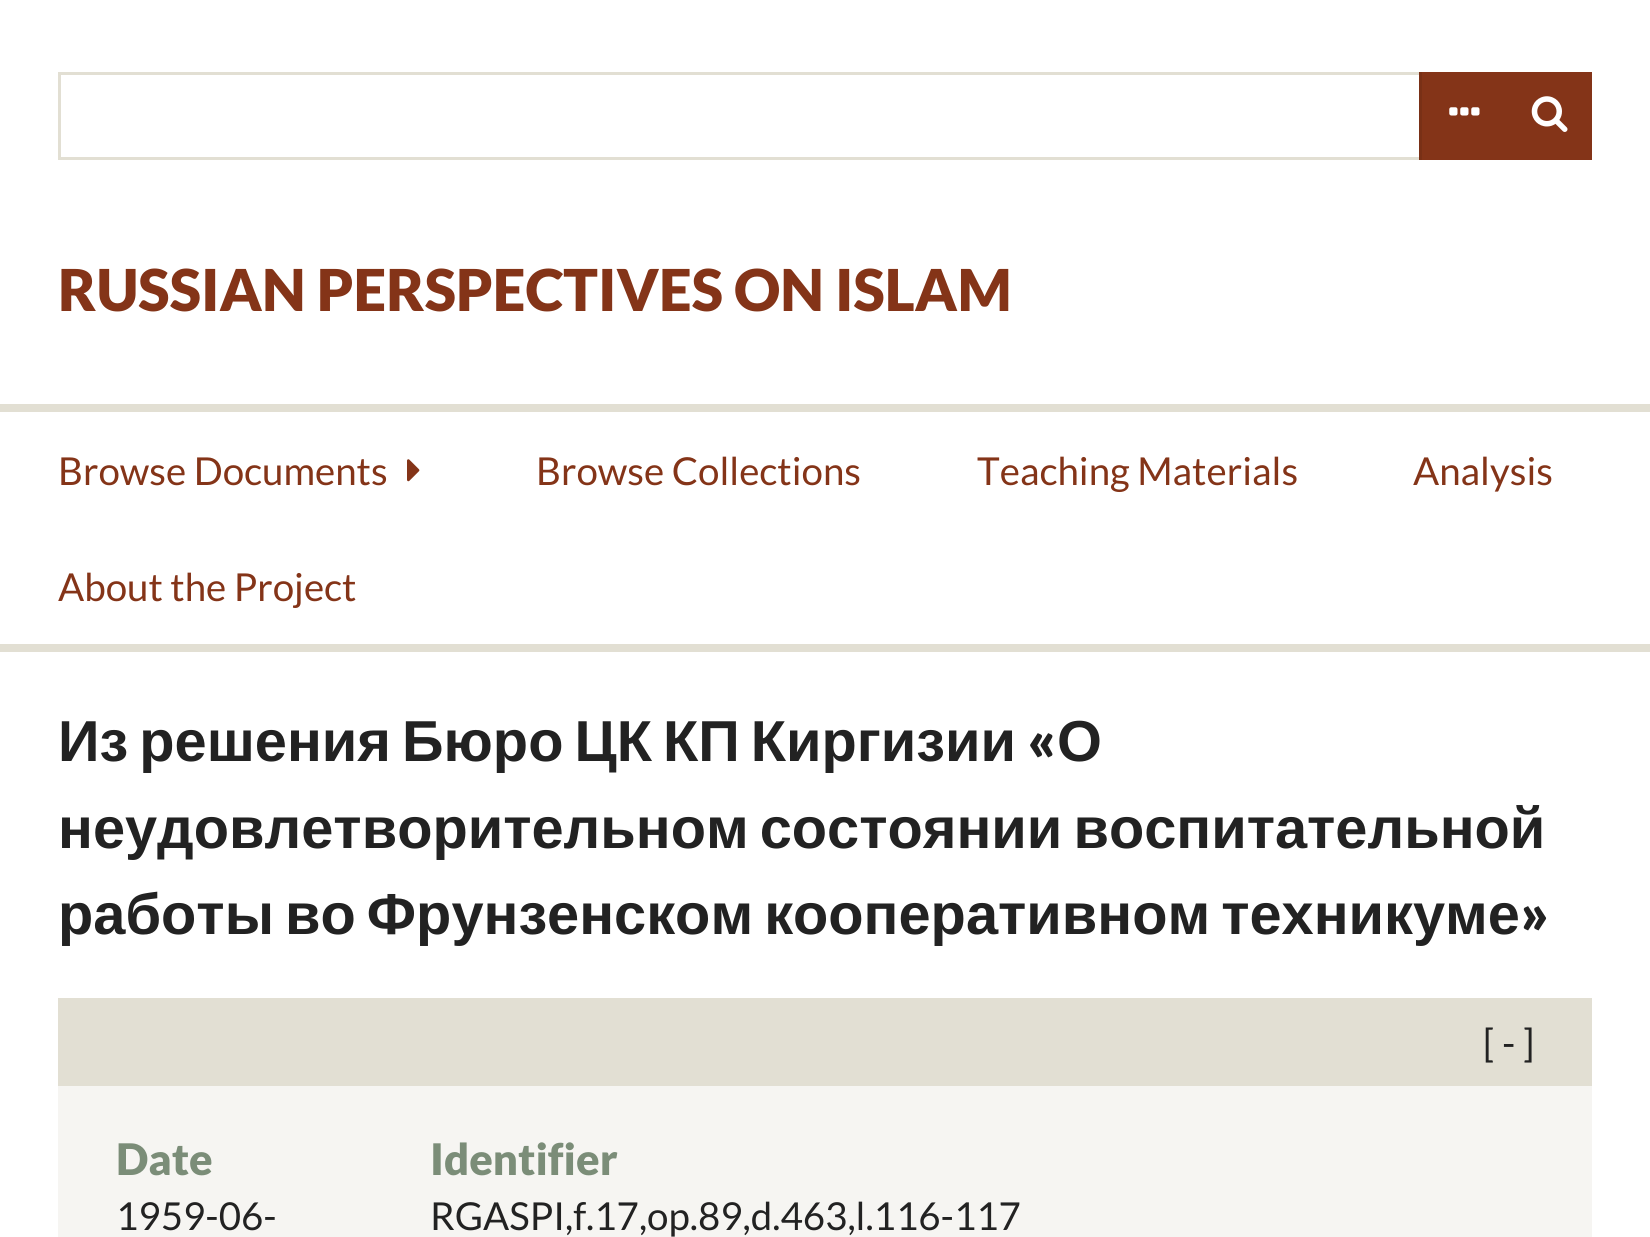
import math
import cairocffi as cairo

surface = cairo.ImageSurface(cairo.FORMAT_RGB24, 1650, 1237)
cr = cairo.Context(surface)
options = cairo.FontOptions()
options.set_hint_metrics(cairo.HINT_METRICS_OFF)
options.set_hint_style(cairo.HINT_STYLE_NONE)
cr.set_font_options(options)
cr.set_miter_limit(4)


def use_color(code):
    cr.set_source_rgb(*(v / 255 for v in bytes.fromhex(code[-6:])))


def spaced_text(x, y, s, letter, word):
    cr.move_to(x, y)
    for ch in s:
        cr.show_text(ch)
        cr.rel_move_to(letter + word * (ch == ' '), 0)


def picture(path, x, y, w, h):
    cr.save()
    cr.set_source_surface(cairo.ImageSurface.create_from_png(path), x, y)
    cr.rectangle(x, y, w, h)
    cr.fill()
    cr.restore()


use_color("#ffffff")
cr.paint()
cr.rectangle(59.5, 73.5, 1531, 85)
use_color("#e2dfd3")
cr.set_line_width(3)
cr.stroke()
use_color("#843418")
cr.rectangle(1422, 72, 170, 88)
cr.fill()
use_color("#793016")
cr.rectangle(1419, 72, 3, 88)
cr.fill()
picture("img1.png", 1449, 107, 31, 9)
picture("img2.png", 1531, 96, 37, 36)
cr.select_font_face("Lato Black")
cr.set_font_size(57.75)
use_color("#843418")
cr.move_to(58, 311)
cr.show_text("RUSSIAN PERSPECTIVES ON ISLAM")
use_color("#e2dfd3")
cr.rectangle(0, 404, 1650, 8)
cr.fill()
cr.rectangle(0, 644, 1650, 8)
cr.fill()
cr.select_font_face("Lato")
cr.set_font_size(38.5)
use_color("#843418")
cr.move_to(58, 485)
cr.show_text("Browse Documents")
picture("img3.png", 407, 459, 13, 23)
cr.move_to(536, 485)
cr.show_text("Browse Collections")
cr.move_to(977, 485)
cr.show_text("Teaching Materials")
cr.move_to(1413, 485)
cr.show_text("Analysis")
cr.move_to(58, 601)
cr.show_text("About the Project")
cr.select_font_face("Liberation Sans", cairo.FONT_SLANT_NORMAL, cairo.FONT_WEIGHT_BOLD)
cr.set_font_size(57.75)
use_color("#222222")
spaced_text(58, 761, "Из решения Бюро ЦК КП Киргизии", 0, -5)
cr.select_font_face("Lato Black")
cr.move_to(1027, 761)
cr.show_text("«")
cr.select_font_face("Liberation Sans", cairo.FONT_SLANT_NORMAL, cairo.FONT_WEIGHT_BOLD)
cr.move_to(1057, 761)
cr.show_text("О")
spaced_text(58, 848, "неудовлетворительном состоянии воспитательной", 0, -5)
spaced_text(58, 934, "работы во Фрунзенском кооперативном техникуме", 0, -5)
cr.select_font_face("Lato Black")
cr.move_to(1520, 934)
cr.show_text("»")
use_color("#f6f5f2")
cr.rectangle(58, 1086, 1534, 151)
cr.fill()
use_color("#e2dfd3")
cr.rectangle(58, 998, 1534, 88)
cr.fill()
cr.select_font_face("Lato")
cr.set_font_size(38.5)
use_color("#222222")
cr.move_to(1483, 1057)
cr.show_text("[ - ]")
cr.select_font_face("Lato Black")
cr.set_font_size(43.5)
use_color("#7b8d78")
cr.move_to(116, 1175)
cr.show_text("Date")
cr.select_font_face("Lato")
cr.set_font_size(38.5)
use_color("#222222")
cr.move_to(116, 1230)
cr.show_text("1959-06-")
cr.select_font_face("Lato Black")
cr.set_font_size(43.5)
use_color("#7b8d78")
cr.move_to(430, 1175)
cr.show_text("Identifier")
cr.select_font_face("Lato")
cr.set_font_size(38.5)
use_color("#222222")
cr.move_to(430, 1230)
cr.show_text("RGASPI,f.17,op.89,d.463,l.116-117")
surface.write_to_png("result.png")
